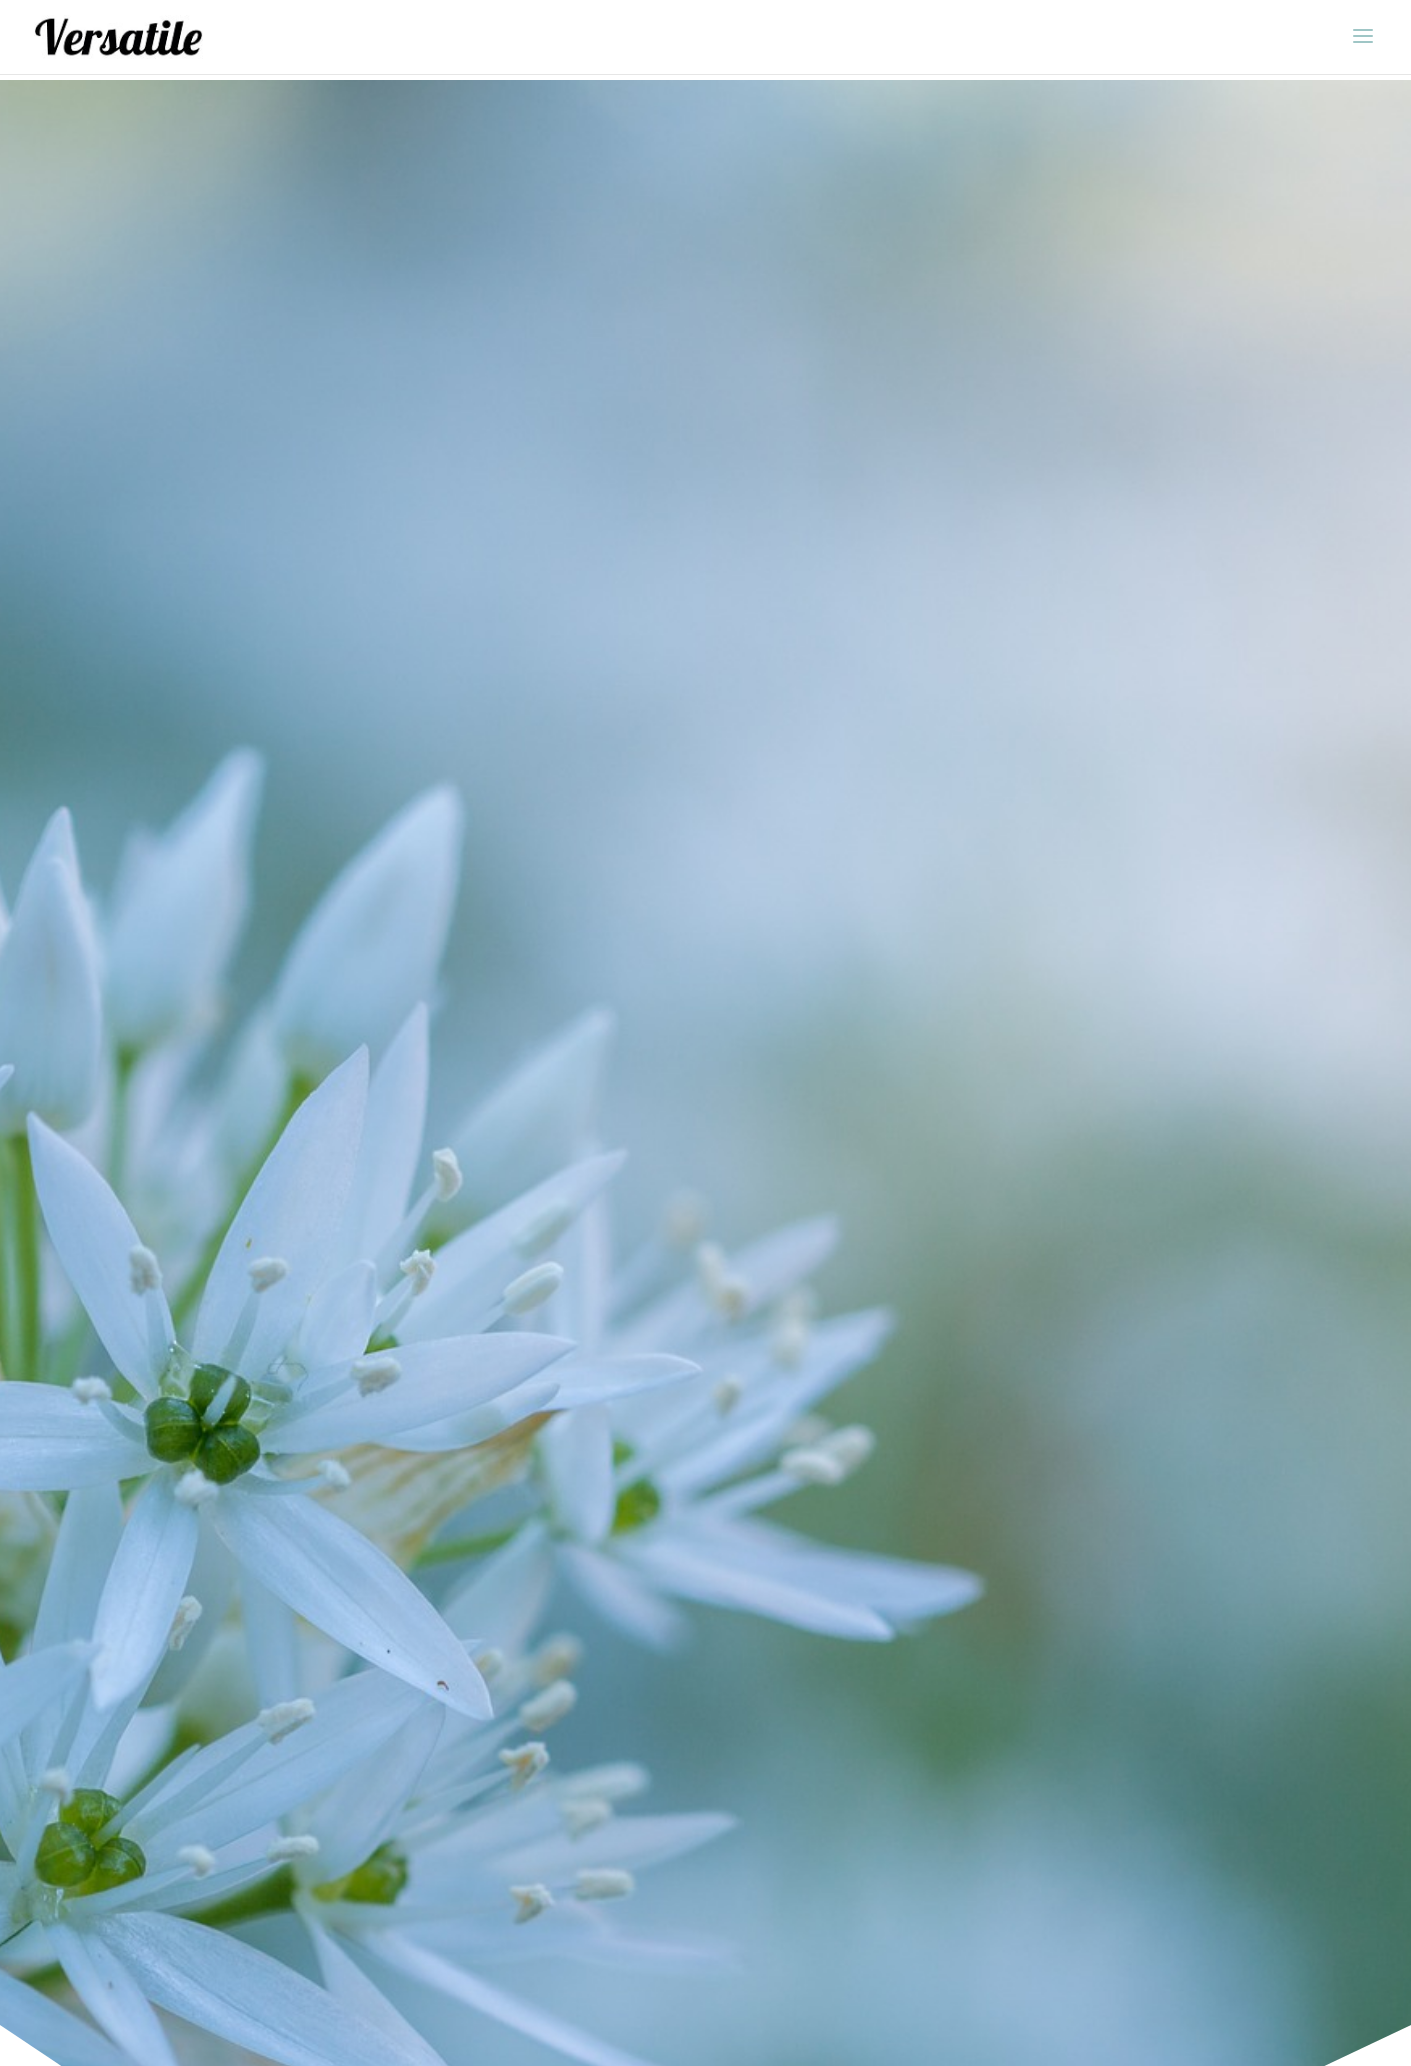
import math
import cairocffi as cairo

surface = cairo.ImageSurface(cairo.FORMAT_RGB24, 1411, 2066)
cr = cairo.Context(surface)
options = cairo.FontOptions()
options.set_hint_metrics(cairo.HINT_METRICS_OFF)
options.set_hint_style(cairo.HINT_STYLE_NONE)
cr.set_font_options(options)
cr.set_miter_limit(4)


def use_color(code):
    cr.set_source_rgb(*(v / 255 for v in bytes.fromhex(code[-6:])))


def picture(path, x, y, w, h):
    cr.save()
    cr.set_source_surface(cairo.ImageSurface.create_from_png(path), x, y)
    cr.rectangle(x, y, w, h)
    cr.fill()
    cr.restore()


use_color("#ffffff")
cr.paint()
use_color("#e6e6e6")
cr.rectangle(0, 74, 1411, 1)
cr.fill()
picture("img1.png", 34, 15, 169, 44)
picture("img2.png", 1353, 29, 20, 14)
picture("img3.png", 0, 80, 1411, 1986)
use_color("#ffffff")
cr.new_path()
cr.move_to(206, 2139)
cr.line_to(1220, 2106)
cr.curve_to(1235, 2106, 1249, 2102, 1261, 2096)
cr.line_to(1411, 2025)
cr.line_to(1411, 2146)
cr.line_to(0, 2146)
cr.line_to(0, 2025)
cr.line_to(145, 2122)
cr.curve_to(163, 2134, 184, 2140, 206, 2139)
cr.close_path()
cr.fill()
surface.write_to_png("result.png")
